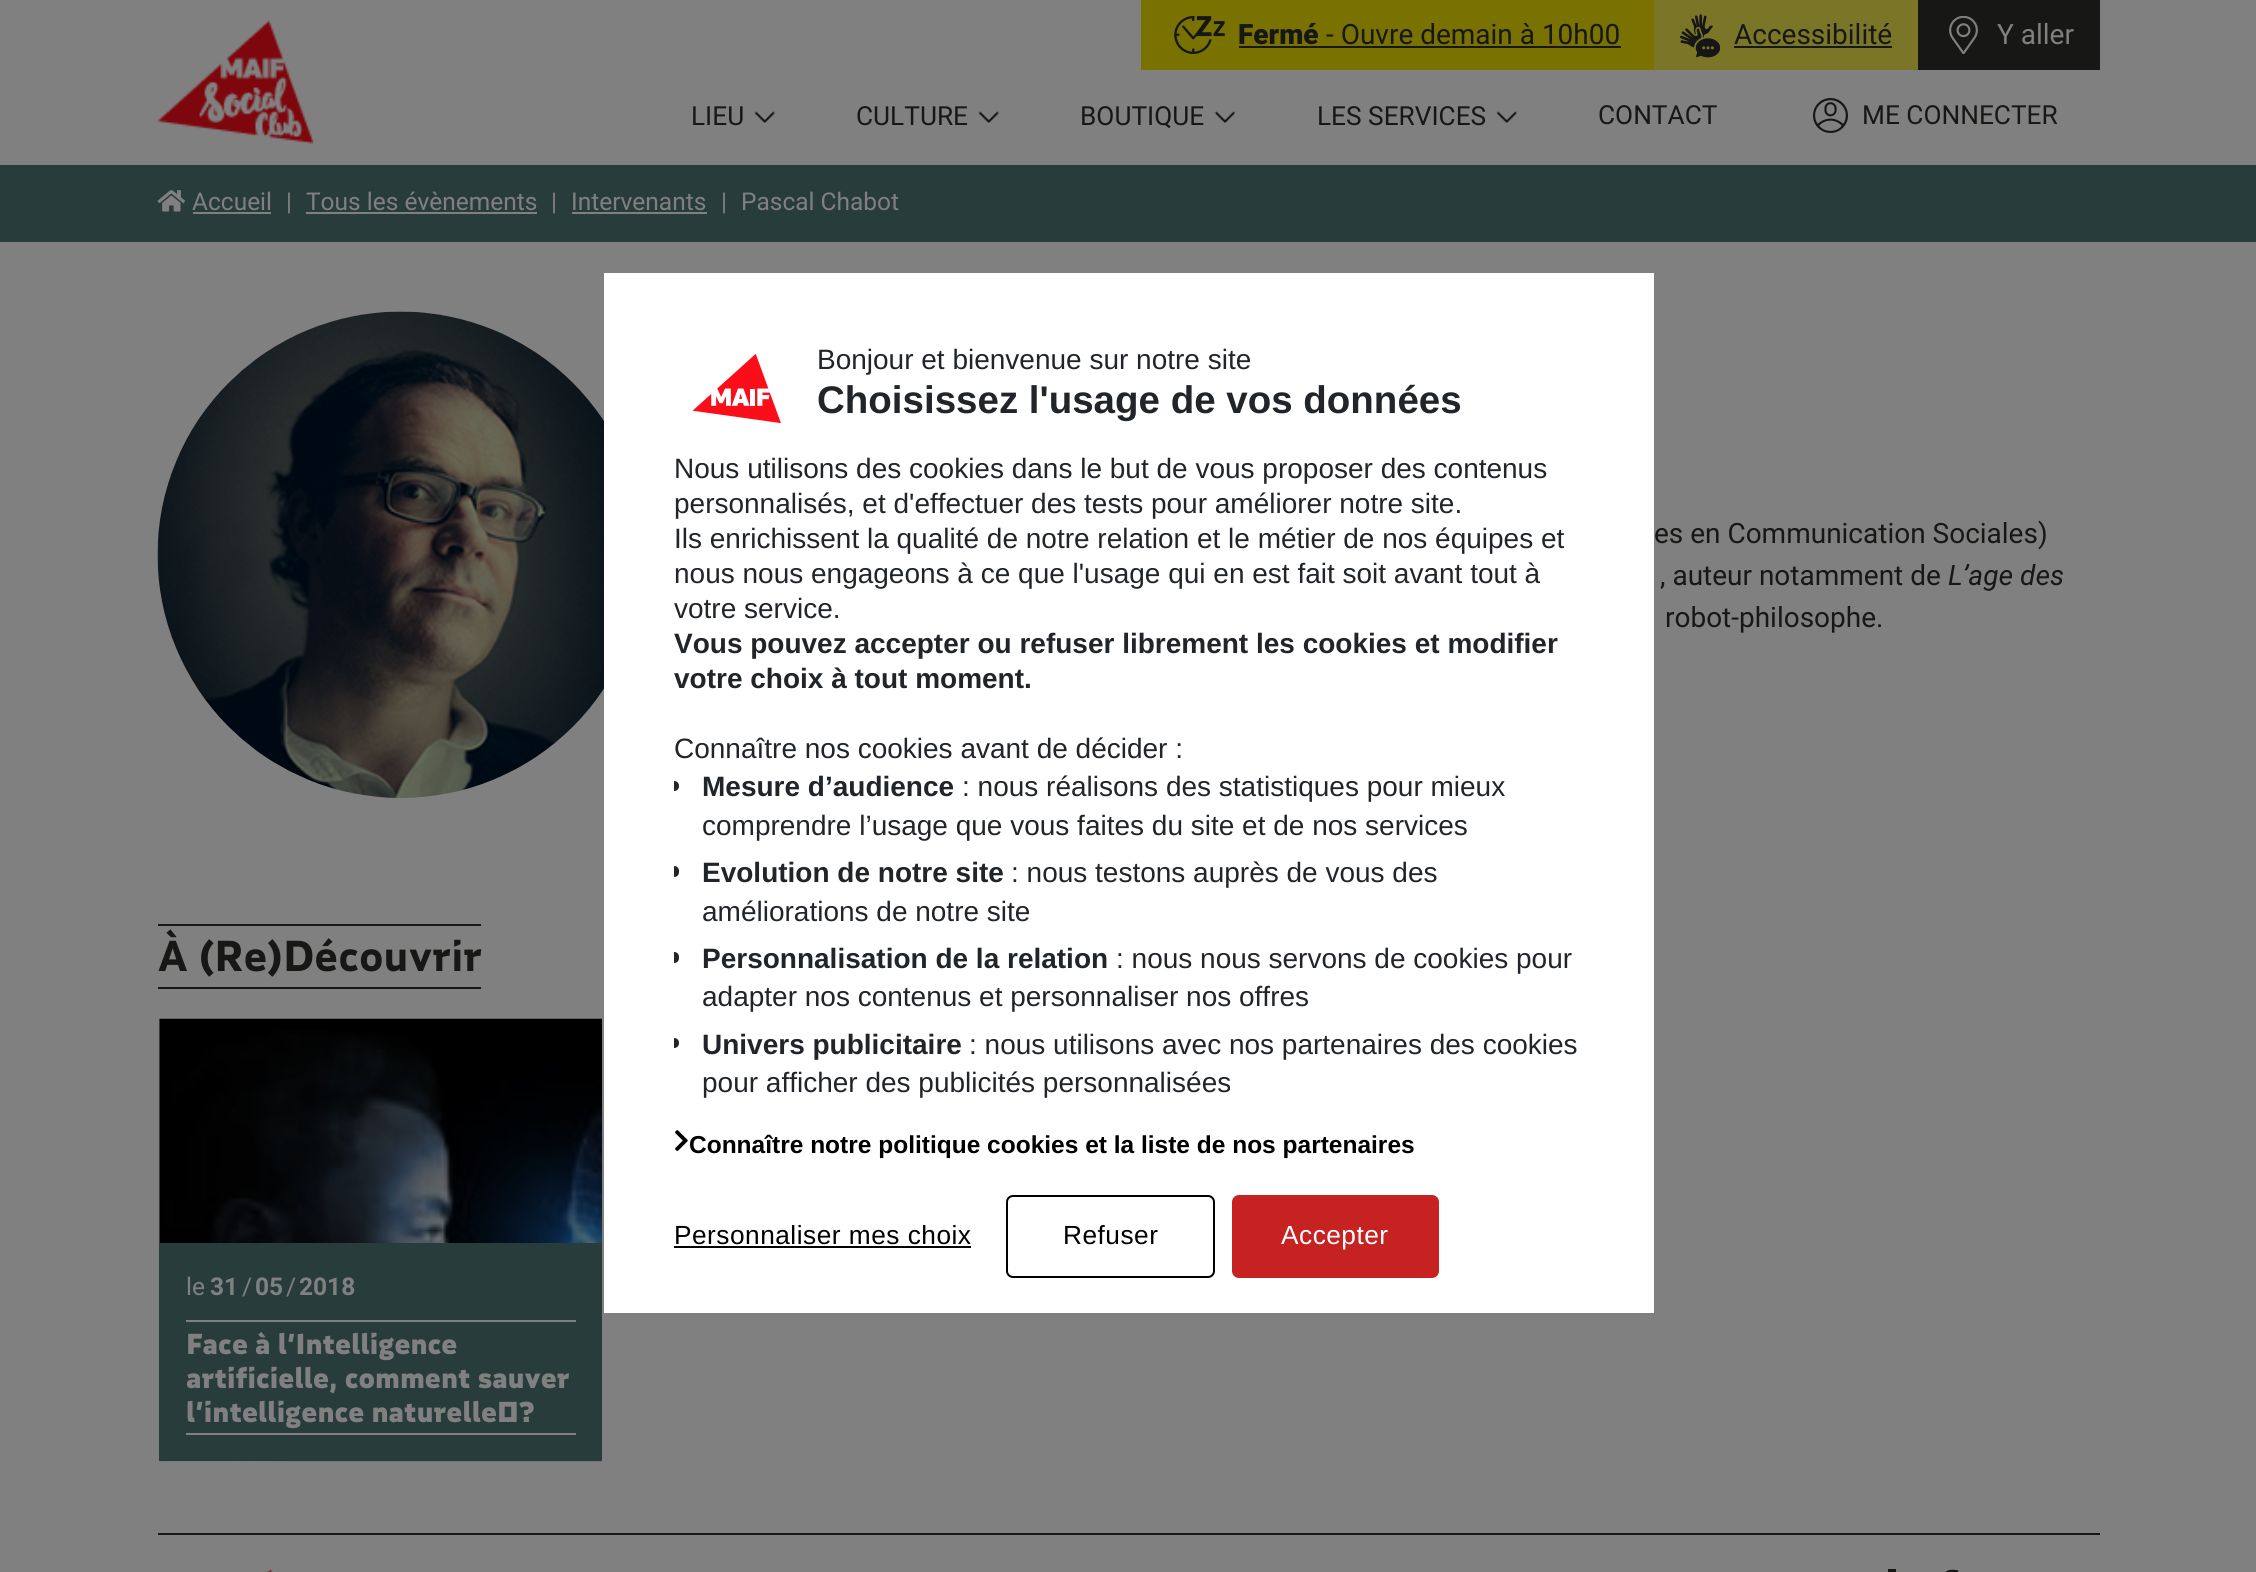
import math
import cairocffi as cairo

surface = cairo.ImageSurface(cairo.FORMAT_RGB24, 2256, 1572)
cr = cairo.Context(surface)
options = cairo.FontOptions()
options.set_hint_metrics(cairo.HINT_METRICS_OFF)
options.set_hint_style(cairo.HINT_STYLE_NONE)
cr.set_font_options(options)
cr.set_miter_limit(4)


def use_color(code):
    cr.set_source_rgb(*(v / 255 for v in bytes.fromhex(code[-6:])))


def spaced_text(x, y, s, letter, word):
    cr.move_to(x, y)
    for ch in s:
        cr.show_text(ch)
        cr.rel_move_to(letter + word * (ch == ' '), 0)


def round_rect(x, y, w, h, r):
    cr.new_sub_path()
    for i, (u, v) in enumerate([(x + w - r, y + h - r), (x + r, y + h - r), (x + r, y + r), (x + w - r, y + r)]):
        cr.arc(u, v, r, i * math.pi / 2, (i + 1) * math.pi / 2)
    cr.close_path()


def picture(path, x, y, w, h):
    cr.save()
    cr.set_source_surface(cairo.ImageSurface.create_from_png(path), x, y)
    cr.rectangle(x, y, w, h)
    cr.fill()
    cr.restore()


use_color("#808080")
cr.paint()
picture("img1.png", 157, 20, 157, 124)
use_color("#797100")
cr.rectangle(1141, 0, 513, 70)
cr.fill()
picture("img2.png", 1174, 16, 51, 38)
cr.select_font_face("Roboto Black")
cr.set_font_size(28)
use_color("#171716")
cr.move_to(1238, 44)
cr.show_text("Fermé")
cr.rectangle(1239, 46, 382, 2)
cr.fill()
cr.select_font_face("Roboto")
cr.move_to(1326, 44)
cr.show_text("- Ouvre demain à 10h00")
use_color("#7b7627")
cr.rectangle(1654, 0, 264, 70)
cr.fill()
picture("img3.png", 1680, 14, 40, 44)
use_color("#171716")
cr.move_to(1734, 44)
cr.show_text("Accessibilité")
cr.rectangle(1734, 46, 158, 2)
cr.fill()
cr.rectangle(1918, 0, 182, 70)
cr.fill()
picture("img4.png", 1949, 16, 29, 38)
use_color("#808080")
cr.move_to(1997, 44)
cr.show_text("Y aller")
cr.set_font_size(26.25)
use_color("#171716")
cr.move_to(691, 125)
cr.show_text("LIEU")
picture("img5.png", 754, 111, 21, 12)
cr.move_to(856, 125)
cr.show_text("CULTURE")
picture("img5.png", 978, 111, 21, 12)
cr.move_to(1080, 125)
cr.show_text("BOUTIQUE")
picture("img6.png", 1214, 111, 21, 12)
cr.move_to(1317, 125)
cr.show_text("LES SERVICES")
picture("img5.png", 1496, 111, 21, 12)
cr.move_to(1598, 124)
cr.show_text("CONTACT")
picture("img7.png", 1813, 98, 35, 35)
cr.move_to(1862, 124)
cr.show_text("ME CONNECTER")
use_color("#283c3b")
cr.rectangle(0, 165, 2256, 77)
cr.fill()
picture("img8.png", 157, 190, 28, 22)
cr.set_font_size(24.5)
use_color("#808080")
cr.move_to(192, 210)
cr.show_text("Accueil")
cr.rectangle(193, 212, 78, 2)
cr.fill()
cr.move_to(286, 210)
cr.show_text("|")
cr.move_to(306, 210)
cr.show_text("Tous les évènements")
cr.rectangle(306, 212, 231, 2)
cr.fill()
cr.move_to(551, 210)
cr.show_text("|")
cr.move_to(571, 210)
cr.show_text("Intervenants")
cr.rectangle(572, 212, 135, 2)
cr.fill()
cr.move_to(721, 210)
cr.show_text("|")
cr.move_to(741, 210)
cr.show_text("Pascal Chabot")
picture("img9.png", 157, 311, 447, 487)
cr.set_font_size(28)
use_color("#171716")
cr.move_to(1654, 543)
cr.show_text("es en Communication Sociales)")
cr.move_to(1660, 585)
cr.show_text(", auteur notamment de")
cr.select_font_face("Roboto", cairo.FONT_SLANT_ITALIC)
cr.move_to(1948, 585)
cr.show_text("L’age des")
cr.select_font_face("Roboto")
cr.move_to(1665, 627)
cr.show_text("robot-philosophe.")
cr.rectangle(158, 924, 323, 2)
cr.fill()
cr.rectangle(158, 987, 323, 2)
cr.fill()
cr.select_font_face("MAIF", cairo.FONT_SLANT_NORMAL, cairo.FONT_WEIGHT_BOLD)
cr.set_font_size(42)
cr.move_to(158, 971)
cr.show_text("À (Re)Découvrir")
picture("img10.png", 159, 1018, 443, 444)
use_color("#283c3b")
cr.rectangle(159, 1243, 443, 218)
cr.fill()
cr.select_font_face("Roboto")
cr.set_font_size(24.5)
use_color("#808080")
cr.move_to(186, 1295)
cr.show_text("le")
cr.select_font_face("Roboto", cairo.FONT_SLANT_NORMAL, cairo.FONT_WEIGHT_BOLD)
cr.move_to(210, 1295)
cr.show_text("31")
cr.select_font_face("Roboto")
cr.move_to(242, 1295)
cr.show_text("/")
cr.select_font_face("Roboto", cairo.FONT_SLANT_NORMAL, cairo.FONT_WEIGHT_BOLD)
cr.move_to(255, 1295)
cr.show_text("05")
cr.select_font_face("Roboto")
cr.move_to(286, 1295)
cr.show_text("/")
cr.select_font_face("Roboto", cairo.FONT_SLANT_NORMAL, cairo.FONT_WEIGHT_BOLD)
cr.move_to(299, 1295)
cr.show_text("2018")
cr.rectangle(186, 1320, 390, 2)
cr.fill()
cr.rectangle(186, 1433, 390, 2)
cr.fill()
cr.select_font_face("MAIF Black")
cr.set_font_size(28)
cr.move_to(186, 1354)
cr.show_text("Face à l’Intelligence")
cr.move_to(186, 1388)
cr.show_text("artificielle, comment sauver")
cr.move_to(186, 1422)
cr.show_text("l’intelligence naturelle ?")
use_color("#ffffff")
cr.rectangle(604, 273, 1050, 1040)
cr.fill()
picture("img11.png", 692, 354, 89, 70)
cr.select_font_face("Liberation Sans")
use_color("#212529")
cr.move_to(817, 369)
cr.show_text("Bonjour et bienvenue sur notre site")
cr.select_font_face("Liberation Sans", cairo.FONT_SLANT_NORMAL, cairo.FONT_WEIGHT_BOLD)
cr.set_font_size(38.5)
cr.move_to(817, 413)
cr.show_text("Choisissez l'usage de vos données")
cr.select_font_face("Liberation Sans")
cr.set_font_size(28)
cr.move_to(674, 478)
cr.show_text("Nous utilisons des cookies dans le but de vous proposer des contenus")
cr.move_to(674, 513)
cr.show_text("personnalisés, et d'effectuer des tests pour améliorer notre site.")
cr.move_to(674, 548)
cr.show_text("Ils enrichissent la qualité de notre relation et le métier de nos équipes et")
cr.move_to(674, 583)
cr.show_text("nous nous engageons à ce que l'usage qui en est fait soit avant tout à")
cr.move_to(674, 618)
cr.show_text("votre service.")
cr.select_font_face("Liberation Sans", cairo.FONT_SLANT_NORMAL, cairo.FONT_WEIGHT_BOLD)
cr.move_to(674, 653)
cr.show_text("Vous pouvez accepter ou refuser librement les cookies et modifier")
cr.move_to(674, 688)
cr.show_text("votre choix à tout moment.")
cr.select_font_face("Liberation Sans")
cr.move_to(674, 758)
cr.show_text("Connaître nos cookies avant de décider :")
cr.new_path()
cr.move_to(674, 781)
cr.curve_to(677, 781, 679, 783, 679, 786)
cr.curve_to(679, 789, 677, 791, 674, 791)
cr.close_path()
cr.fill()
cr.select_font_face("Liberation Sans", cairo.FONT_SLANT_NORMAL, cairo.FONT_WEIGHT_BOLD)
cr.move_to(702, 796)
cr.show_text("Mesure d’audience")
cr.select_font_face("Liberation Sans")
cr.move_to(962, 796)
cr.show_text(": nous réalisons des statistiques pour mieux")
cr.move_to(702, 835)
cr.show_text("comprendre l’usage que vous faites du site et de nos services")
cr.new_path()
cr.move_to(674, 866)
cr.curve_to(677, 866, 679, 868, 679, 871)
cr.line_to(679, 872)
cr.curve_to(679, 875, 677, 877, 674, 877)
cr.close_path()
cr.fill()
cr.select_font_face("Liberation Sans", cairo.FONT_SLANT_NORMAL, cairo.FONT_WEIGHT_BOLD)
cr.move_to(702, 882)
cr.show_text("Evolution de notre site")
cr.select_font_face("Liberation Sans")
cr.move_to(1011, 882)
cr.show_text(": nous testons auprès de vous des")
cr.move_to(702, 921)
cr.show_text("améliorations de notre site")
cr.new_path()
cr.move_to(674, 952)
cr.curve_to(677, 952, 679, 954, 679, 957)
cr.line_to(679, 958)
cr.curve_to(679, 961, 677, 963, 674, 963)
cr.close_path()
cr.fill()
cr.select_font_face("Liberation Sans", cairo.FONT_SLANT_NORMAL, cairo.FONT_WEIGHT_BOLD)
cr.move_to(702, 968)
cr.show_text("Personnalisation de la relation")
cr.select_font_face("Liberation Sans")
cr.move_to(1116, 968)
cr.show_text(": nous nous servons de cookies pour")
cr.move_to(702, 1006)
cr.show_text("adapter nos contenus et personnaliser nos offres")
cr.new_path()
cr.move_to(674, 1038)
cr.curve_to(677, 1038, 679, 1040, 679, 1043)
cr.curve_to(679, 1046, 677, 1048, 674, 1048)
cr.close_path()
cr.fill()
cr.select_font_face("Liberation Sans", cairo.FONT_SLANT_NORMAL, cairo.FONT_WEIGHT_BOLD)
cr.move_to(702, 1054)
cr.show_text("Univers publicitaire")
cr.select_font_face("Liberation Sans")
cr.move_to(969, 1054)
cr.show_text(": nous utilisons avec nos partenaires des cookies")
cr.move_to(702, 1092)
cr.show_text("pour afficher des publicités personnalisées")
picture("img12.png", 675, 1130, 13, 21)
cr.select_font_face("Liberation Sans", cairo.FONT_SLANT_NORMAL, cairo.FONT_WEIGHT_BOLD)
cr.set_font_size(24.5)
use_color("#000000")
cr.move_to(689, 1153)
cr.show_text("Connaître notre politique cookies et la liste de nos partenaires")
cr.select_font_face("Liberation Sans")
cr.set_font_size(26.25)
spaced_text(674, 1244, "Personnaliser mes choix", 0.5, 0)
cr.rectangle(674, 1246, 297, 2)
cr.fill()
round_rect(1007, 1196, 207, 81, 6)
cr.stroke()
spaced_text(1063, 1244, "Refuser", 0.5, 0)
use_color("#c62222")
round_rect(1232, 1195, 207, 83, 7)
cr.fill()
use_color("#ffffff")
spaced_text(1281, 1244, "Accepter", 0.5, 0)
use_color("#171716")
cr.rectangle(158, 1533, 1942, 2)
cr.fill()
picture("img13.png", 266, 1569, 7, 3)
cr.rectangle(1888, 1569, 8, 3)
cr.fill()
picture("img14.png", 1945, 1569, 14, 3)
surface.write_to_png("result.png")
